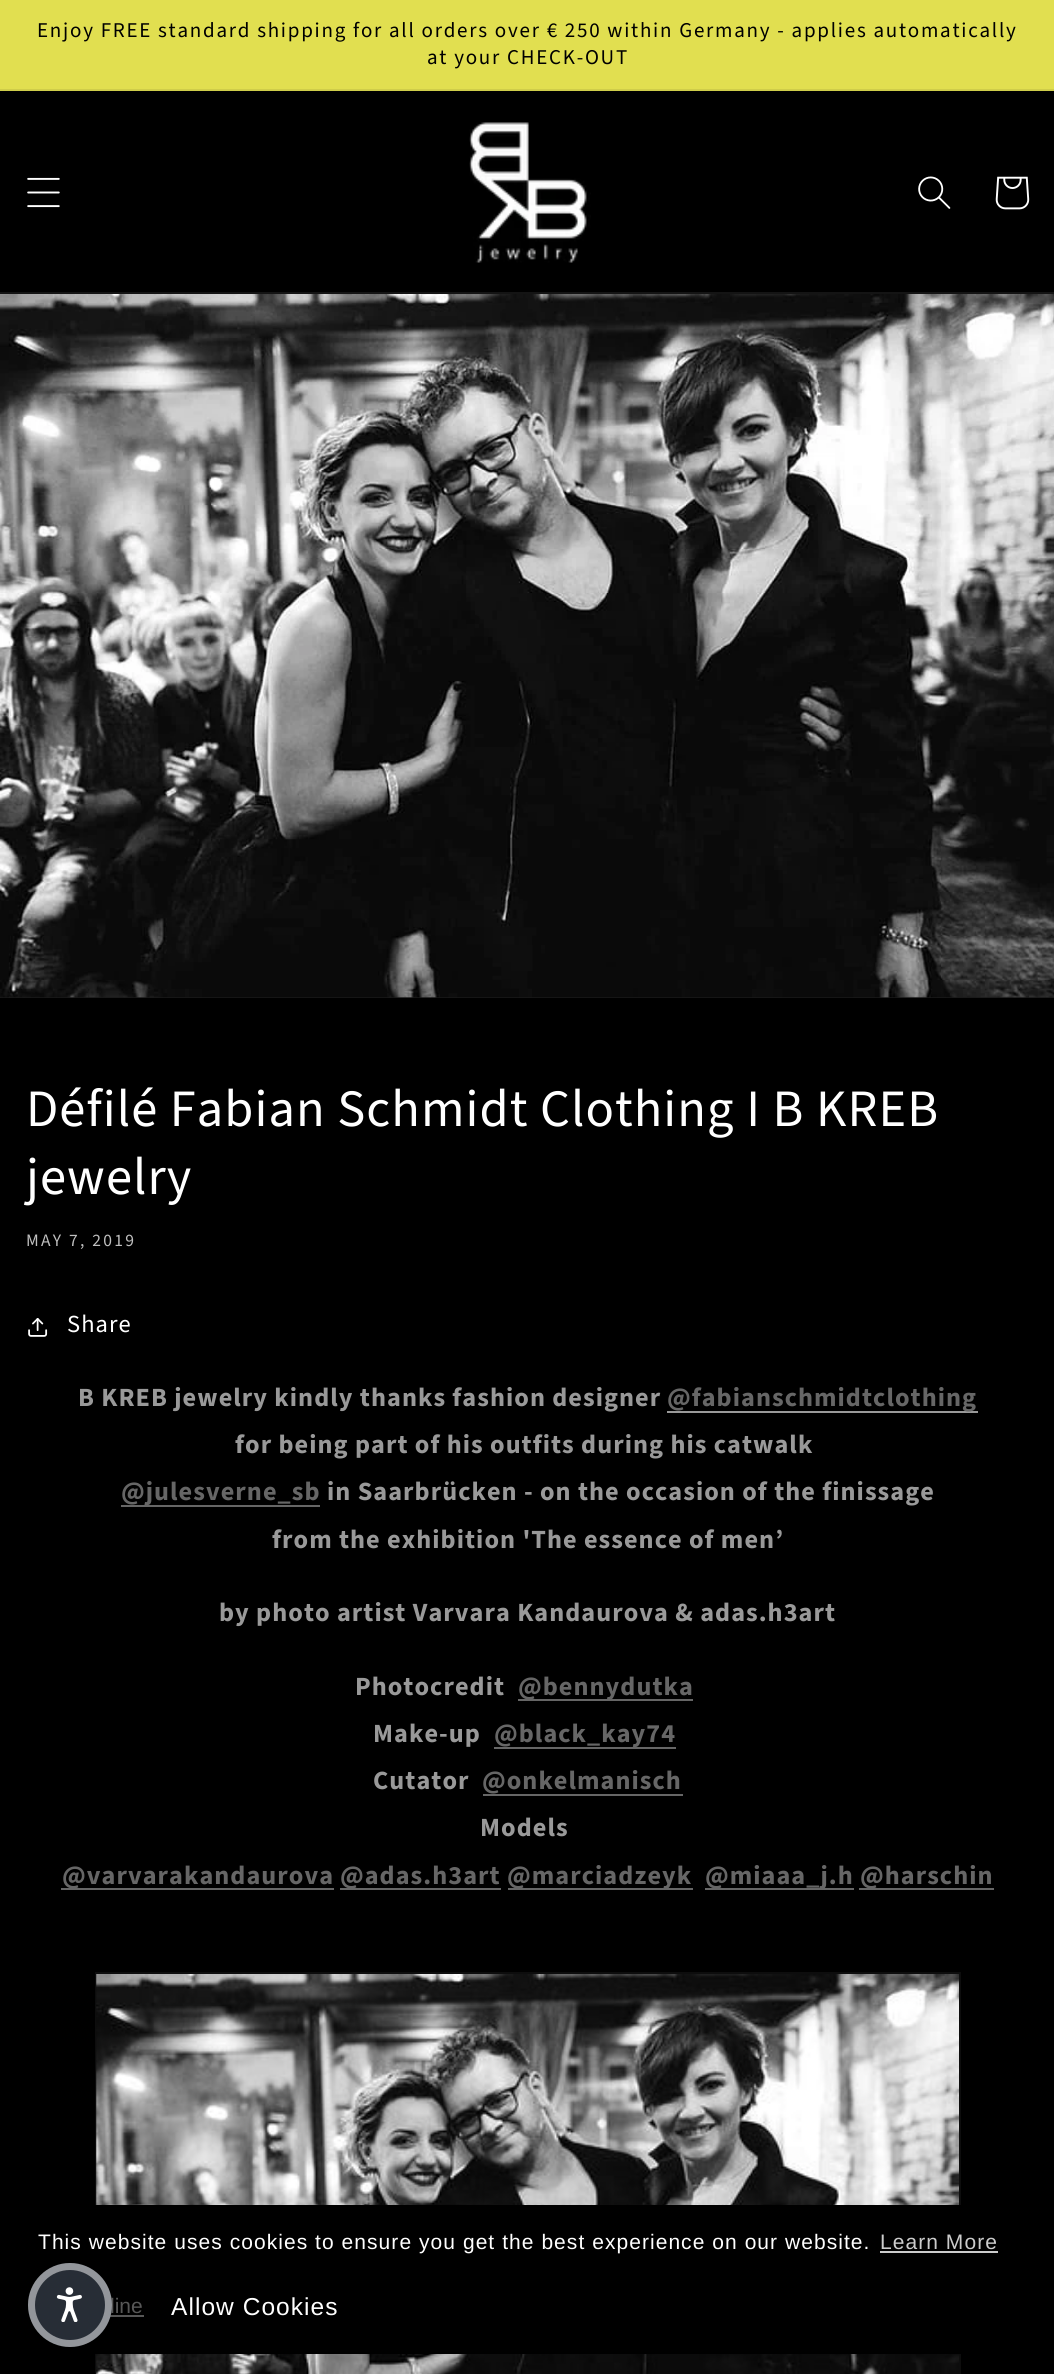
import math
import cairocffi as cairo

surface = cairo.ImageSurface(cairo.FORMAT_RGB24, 1054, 2374)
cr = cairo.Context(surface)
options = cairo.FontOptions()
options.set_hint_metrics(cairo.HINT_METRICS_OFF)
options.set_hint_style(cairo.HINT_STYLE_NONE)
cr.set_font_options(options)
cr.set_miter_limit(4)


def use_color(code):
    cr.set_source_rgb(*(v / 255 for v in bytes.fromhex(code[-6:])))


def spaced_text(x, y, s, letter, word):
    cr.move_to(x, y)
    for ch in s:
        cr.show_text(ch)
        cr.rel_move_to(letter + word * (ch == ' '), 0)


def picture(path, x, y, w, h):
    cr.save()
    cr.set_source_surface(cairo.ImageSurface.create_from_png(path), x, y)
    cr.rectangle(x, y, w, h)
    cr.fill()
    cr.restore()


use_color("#000000")
cr.paint()
use_color("#e1df50")
cr.rectangle(0, 0, 1054, 89)
cr.fill()
use_color("#cfcd4a")
cr.rectangle(0, 89, 1054, 2)
cr.fill()
cr.select_font_face("Source Sans Pro")
cr.set_font_size(21)
use_color("#000000")
spaced_text(37, 37, "Enjoy FREE standard shipping for all orders over € 250 within Germany - applies automatically", 1.75, 0)
spaced_text(427, 64, "at your CHECK-OUT", 1.75, 0)
use_color("#141414")
cr.rectangle(0, 292, 1054, 2)
cr.fill()
picture("img1.png", 27, 177, 33, 31)
picture("img2.png", 469, 122, 122, 141)
picture("img3.png", 918, 176, 33, 33)
picture("img4.png", 995, 176, 35, 34)
use_color("#1a1a1a")
cr.rectangle(0, 997, 1054, 1)
cr.fill()
picture("img5.png", 0, 294, 1054, 704)
cr.set_font_size(52.5)
use_color("#ffffff")
spaced_text(26, 1126, "Défilé Fabian Schmidt Clothing I B KREB", 1.05, 0)
spaced_text(26, 1194, "jewelry", 1.05, 0)
cr.set_font_size(17.5)
use_color("#bfbfbf")
spaced_text(26, 1246, "MAY 7, 2019", 2.25, 0)
picture("img6.png", 28, 1318, 20, 19)
cr.set_font_size(24.5)
use_color("#ffffff")
spaced_text(67, 1332, "Share", 1.05, 0)
cr.select_font_face("Source Sans Pro", cairo.FONT_SLANT_NORMAL, cairo.FONT_WEIGHT_BOLD)
cr.set_font_size(26.25)
use_color("#999999")
spaced_text(78, 1406, "B KREB jewelry kindly thanks fashion designer", 1.05, 0)
cr.rectangle(667, 1411, 311, 2)
cr.fill()
use_color("#666666")
spaced_text(667, 1406, "@fabianschmidtclothing", 1.05, 0)
use_color("#999999")
spaced_text(235, 1453, "for being part of his outfits during his catwalk", 1.05, 0)
use_color("#666666")
cr.rectangle(121, 1505, 199, 2)
cr.fill()
spaced_text(121, 1500, "@julesverne_sb", 1.05, 0)
use_color("#999999")
spaced_text(327, 1500, "in Saarbrücken - on the occasion of the finissage", 1.05, 0)
spaced_text(272, 1548, "from the exhibition 'The essence of men’", 1.05, 0)
spaced_text(219, 1621, "by photo artist Varvara Kandaurova & adas.h3art", 1.05, 0)
spaced_text(355, 1695, "Photocredit", 1.05, 0)
use_color("#666666")
cr.rectangle(518, 1699, 175, 2)
cr.fill()
spaced_text(518, 1695, "@bennydutka", 1.05, 0)
use_color("#999999")
spaced_text(373, 1742, "Make-up", 1.05, 0)
use_color("#666666")
cr.rectangle(494, 1747, 182, 2)
cr.fill()
spaced_text(494, 1742, "@black_kay74", 1.05, 0)
use_color("#999999")
spaced_text(373, 1789, "Cutator", 1.05, 0)
use_color("#666666")
spaced_text(482, 1789, "@onkelmanisch", 1.05, 0)
cr.rectangle(483, 1794, 200, 2)
cr.fill()
use_color("#999999")
spaced_text(480, 1836, "Models", 1.05, 0)
use_color("#666666")
cr.rectangle(61, 1888, 273, 2)
cr.fill()
spaced_text(62, 1884, "@varvarakandaurova", 1.05, 0)
cr.rectangle(340, 1888, 161, 2)
cr.fill()
spaced_text(340, 1884, "@adas.h3art", 1.05, 0)
cr.rectangle(508, 1888, 185, 2)
cr.fill()
spaced_text(507, 1884, "@marciadzeyk", 1.05, 0)
cr.rectangle(705, 1888, 149, 2)
cr.fill()
spaced_text(705, 1884, "@miaaa_j.h", 1.05, 0)
cr.rectangle(859, 1888, 135, 2)
cr.fill()
spaced_text(860, 1884, "@harschin", 1.05, 0)
cr.rectangle(96, 1973, 864, 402)
use_color("#0d0d0d")
cr.stroke()
picture("img7.png", 96, 1974, 863, 400)
use_color("#000000")
cr.rectangle(95, 2205, 866, 149)
cr.fill()
cr.select_font_face("Liberation Sans")
cr.set_font_size(21)
use_color("#ffffff")
spaced_text(38, 2249, "This website uses cookies to ensure you get the best experience on our website.", 1.05, 0)
use_color("#cccccc")
spaced_text(880, 2249, "Learn More", 1.05, 0)
cr.rectangle(880, 2251, 118, 2)
cr.fill()
use_color("#575757")
cr.move_to(110, 2313)
cr.show_text("line")
cr.rectangle(110, 2315, 34, 2)
cr.fill()
cr.set_font_size(24.5)
use_color("#ffffff")
spaced_text(171, 2315, "Allow Cookies", 1.05, 0)
use_color("#272d36")
cr.new_path()
cr.arc(70, 2305, 42, 0, 2 * math.pi)
cr.fill()
cr.arc(70, 2305, 38.5, 0, 2 * math.pi)
cr.set_source_rgba(1, 1, 1, 0.5)
cr.set_line_width(7)
cr.stroke()
picture("img8.png", 56, 2287, 26, 35)
surface.write_to_png("result.png")
